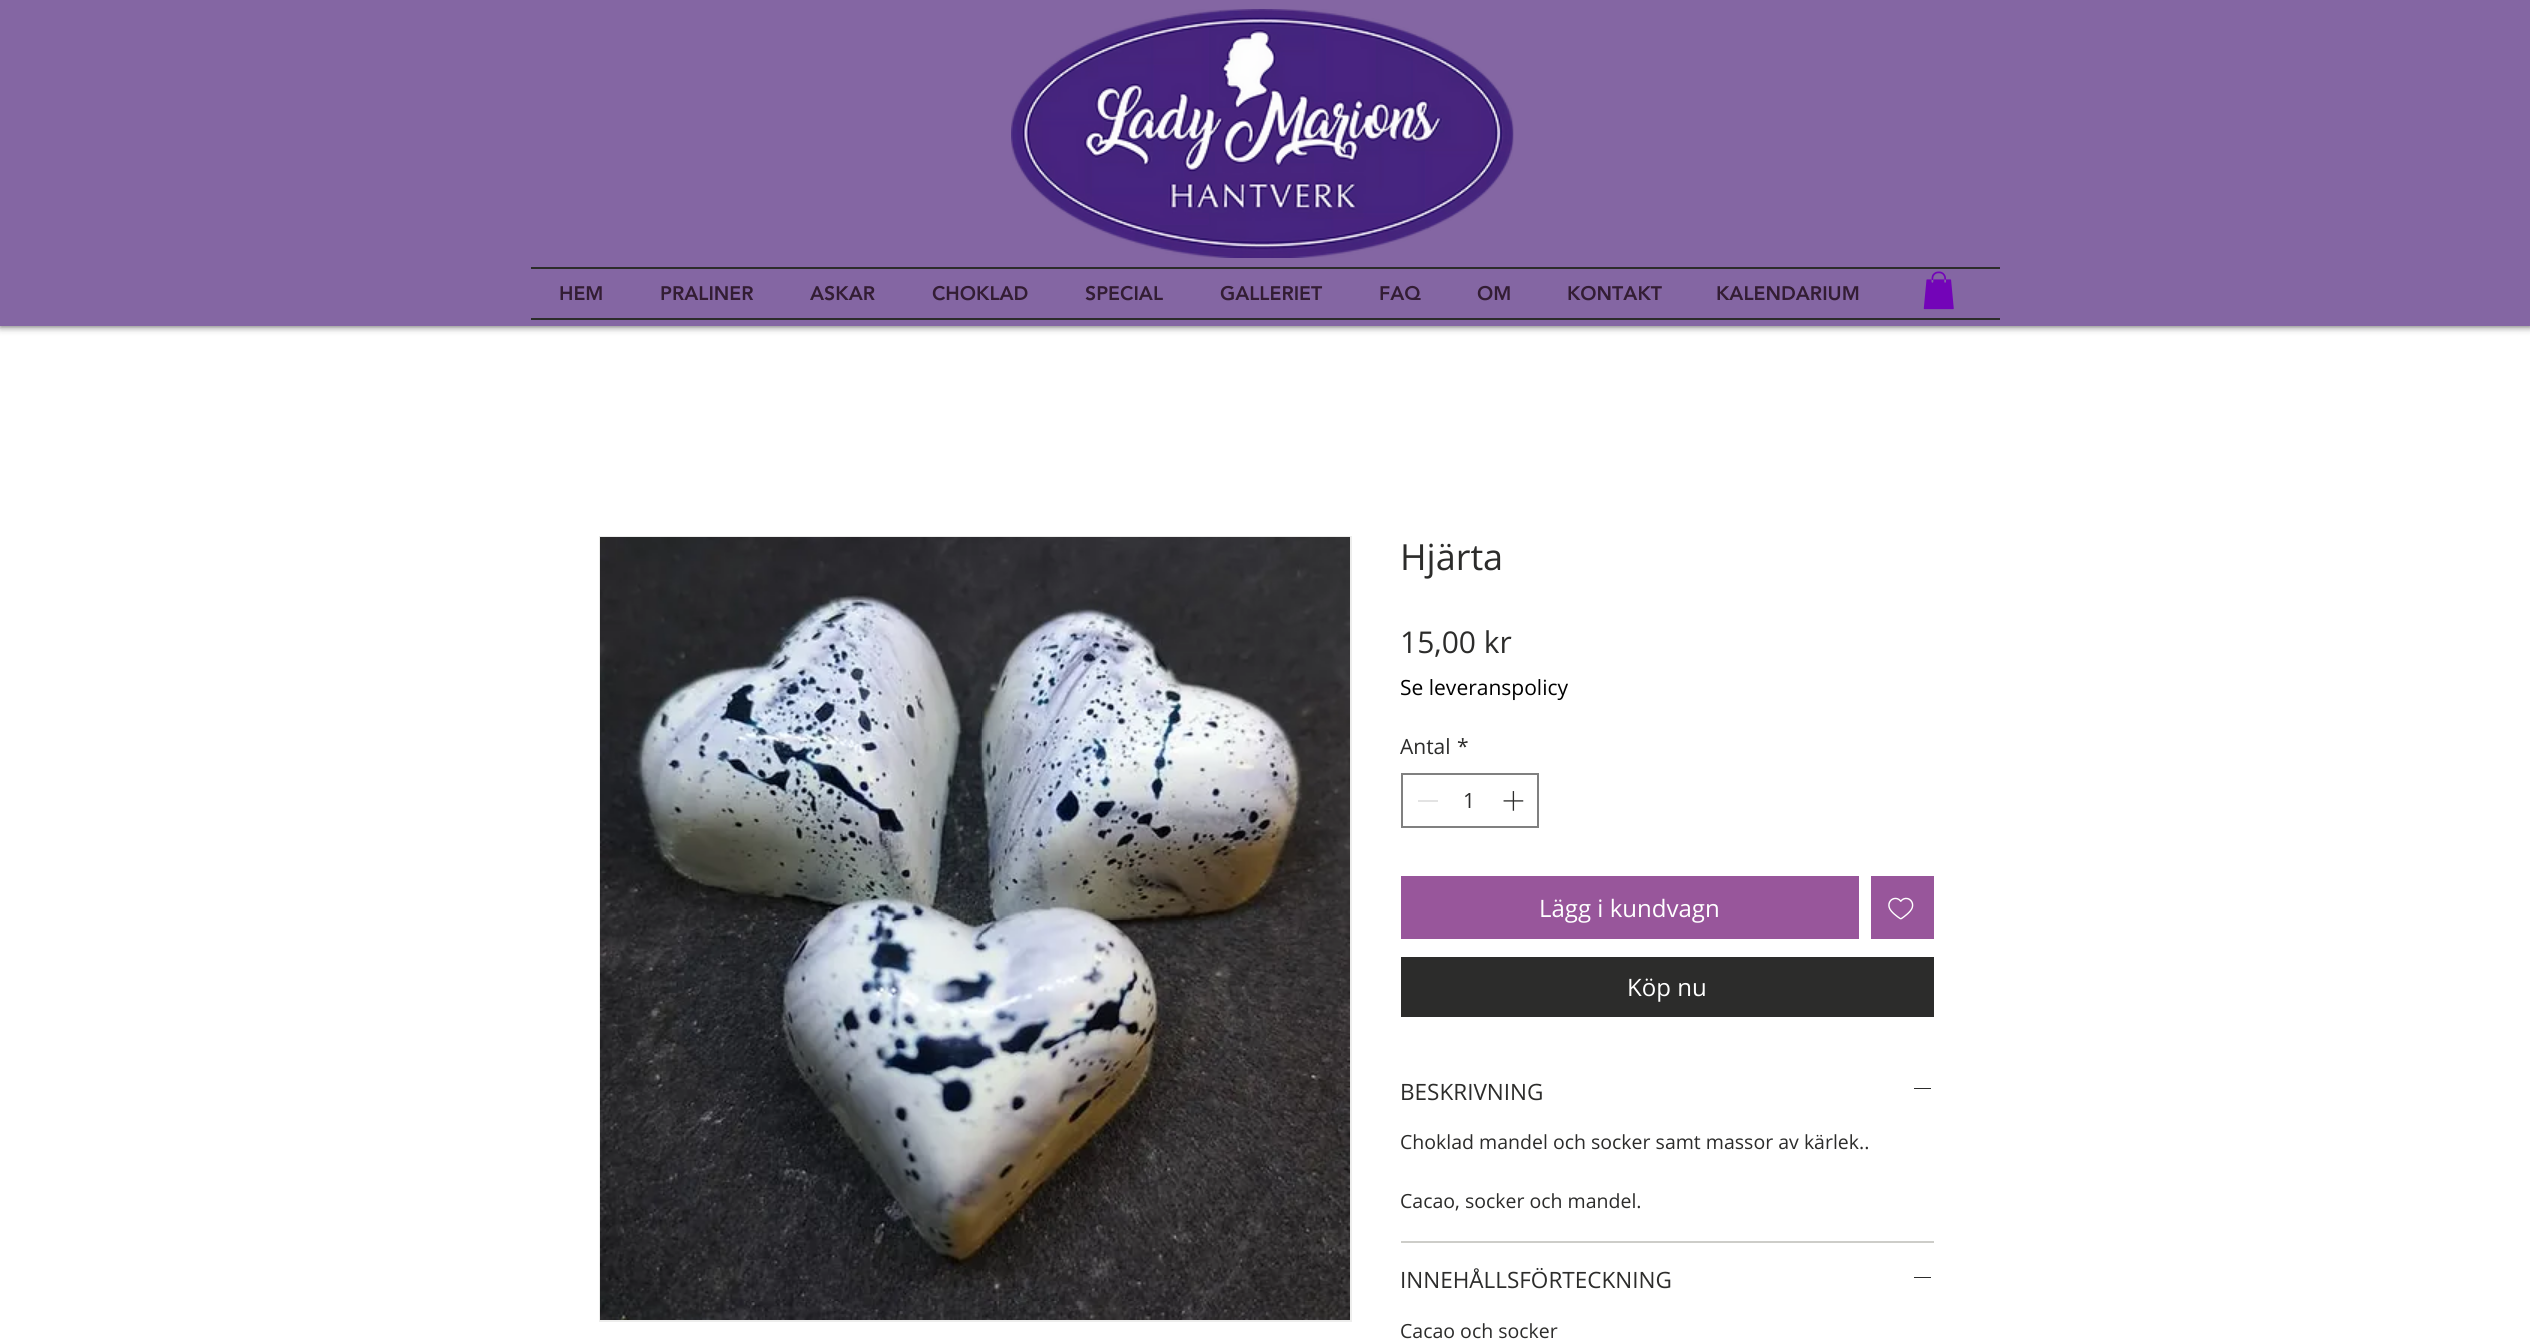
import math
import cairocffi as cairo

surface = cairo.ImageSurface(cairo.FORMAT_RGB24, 2530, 1343)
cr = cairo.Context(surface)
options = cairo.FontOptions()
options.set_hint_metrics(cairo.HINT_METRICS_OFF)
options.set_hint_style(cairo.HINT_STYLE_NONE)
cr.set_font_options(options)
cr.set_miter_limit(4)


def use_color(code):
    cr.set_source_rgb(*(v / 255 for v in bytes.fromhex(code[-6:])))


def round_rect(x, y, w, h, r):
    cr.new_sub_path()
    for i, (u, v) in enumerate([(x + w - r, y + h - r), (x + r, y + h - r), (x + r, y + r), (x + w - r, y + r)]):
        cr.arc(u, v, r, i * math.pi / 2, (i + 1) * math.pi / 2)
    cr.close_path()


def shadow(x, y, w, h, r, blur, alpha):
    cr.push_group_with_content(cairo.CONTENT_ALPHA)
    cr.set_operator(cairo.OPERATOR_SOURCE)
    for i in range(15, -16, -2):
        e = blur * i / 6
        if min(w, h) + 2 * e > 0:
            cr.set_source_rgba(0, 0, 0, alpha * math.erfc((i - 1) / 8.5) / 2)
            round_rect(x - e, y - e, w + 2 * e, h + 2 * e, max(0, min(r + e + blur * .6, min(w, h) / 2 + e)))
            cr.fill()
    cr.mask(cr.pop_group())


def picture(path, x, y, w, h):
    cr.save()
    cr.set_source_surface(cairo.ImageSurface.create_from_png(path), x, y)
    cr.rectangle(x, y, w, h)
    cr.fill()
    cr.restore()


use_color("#ffffff")
cr.paint()
cr.save()
cr.set_fill_rule(cairo.FILL_RULE_EVEN_ODD)
cr.new_path()
cr.move_to(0, 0)
cr.line_to(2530, 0)
cr.line_to(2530, 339)
cr.line_to(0, 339)
cr.close_path()
cr.move_to(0, 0)
cr.line_to(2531, 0)
cr.line_to(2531, 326)
cr.line_to(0, 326)
cr.close_path()
cr.clip()
use_color("#000000")
shadow(0, 0, 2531, 326, 0, 4, 0.7)
cr.restore()
cr.set_source_rgba(0.2, 0, 0.4, 0.6)
cr.rectangle(0, 0, 2530, 326)
cr.fill()
picture("img1.png", 1011, 9, 503, 249)
use_color("#2c2c2b")
cr.rectangle(531, 267, 1469, 2)
cr.fill()
cr.rectangle(531, 318, 1469, 2)
cr.fill()
cr.select_font_face("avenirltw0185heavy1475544 Black")
cr.set_font_size(19.5)
use_color("#331d34")
cr.move_to(559, 300)
cr.show_text("HEM")
cr.move_to(660, 300)
cr.show_text("PRALINER")
cr.move_to(810, 300)
cr.show_text("ASKAR")
cr.move_to(932, 300)
cr.show_text("CHOKLAD")
cr.move_to(1085, 300)
cr.show_text("SPECIAL")
cr.move_to(1220, 300)
cr.show_text("GALLERIET")
cr.move_to(1379, 300)
cr.show_text("FAQ")
cr.move_to(1477, 300)
cr.show_text("OM")
cr.move_to(1567, 300)
cr.show_text("KONTAKT")
cr.move_to(1716, 300)
cr.show_text("KALENDARIUM")
picture("img2.png", 1923, 271, 31, 39)
cr.rectangle(600, 537, 751, 784)
use_color("#ededec")
cr.stroke()
picture("img3.png", 600, 537, 750, 783)
cr.select_font_face("Open Sans")
cr.set_font_size(36)
use_color("#2c2c2b")
cr.move_to(1400, 570)
cr.show_text("Hjärta")
cr.set_font_size(30)
cr.move_to(1400, 653)
cr.show_text("15,00 kr")
cr.set_font_size(21)
use_color("#000000")
cr.move_to(1400, 695)
cr.show_text("Se leveranspolicy")
use_color("#2c2c2b")
cr.move_to(1400, 754)
cr.show_text("Antal")
cr.move_to(1457, 754)
cr.show_text("*")
cr.rectangle(1402, 774, 136, 53)
use_color("#808080")
cr.stroke()
use_color("#e3e3e3")
cr.rectangle(1418, 800, 20, 2)
cr.fill()
use_color("#2c2c2b")
cr.move_to(1463, 808)
cr.show_text("1")
picture("img4.png", 1503, 791, 21, 20)
use_color("#98569b")
cr.rectangle(1401, 876, 458, 63)
cr.fill()
cr.set_font_size(24)
use_color("#ffffff")
cr.move_to(1539, 917)
cr.show_text("Lägg i kundvagn")
use_color("#98569b")
cr.rectangle(1871, 876, 63, 63)
cr.fill()
picture("img5.png", 1888, 897, 26, 23)
use_color("#2c2c2b")
cr.rectangle(1401, 957, 533, 60)
cr.fill()
use_color("#ffffff")
cr.move_to(1627, 996)
cr.show_text("Köp nu")
use_color("#cdcdc9")
cr.rectangle(1401, 1241, 533, 2)
cr.fill()
cr.set_font_size(22.5)
use_color("#2c2c2b")
cr.move_to(1400, 1100)
cr.show_text("BESKRIVNING")
cr.rectangle(1914, 1088, 17, 1)
cr.fill()
cr.set_font_size(19.5)
cr.move_to(1400, 1149)
cr.show_text("Choklad mandel och socker samt massor av kärlek..")
cr.move_to(1400, 1208)
cr.show_text("Cacao, socker och mandel.")
cr.set_font_size(22.5)
cr.move_to(1400, 1288)
cr.show_text("INNEHÅLLSFÖRTECKNING")
cr.rectangle(1914, 1277, 17, 1)
cr.fill()
cr.set_font_size(19.5)
cr.move_to(1400, 1338)
cr.show_text("Cacao och socker")
surface.write_to_png("result.png")
